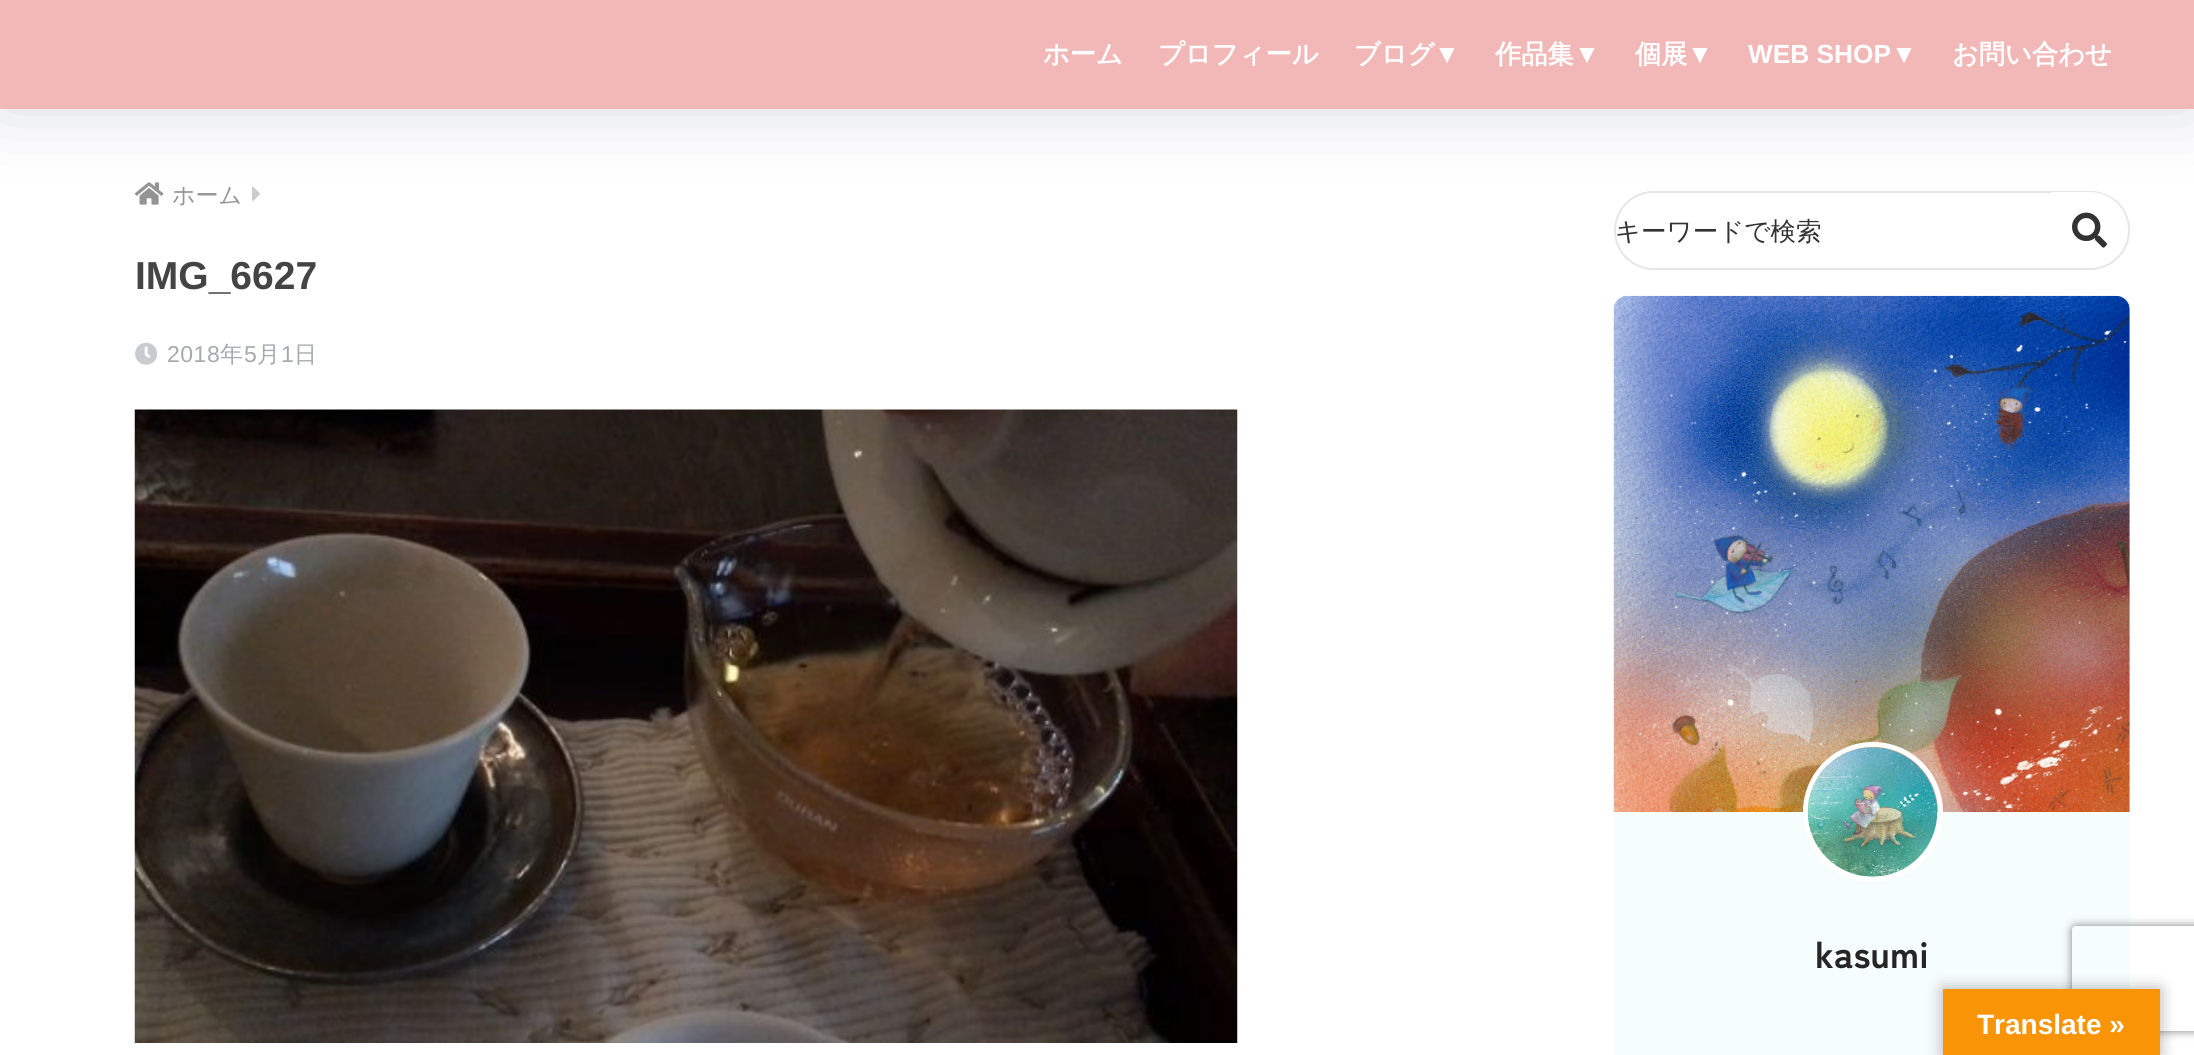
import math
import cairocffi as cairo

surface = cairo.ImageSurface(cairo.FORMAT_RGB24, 2194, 1055)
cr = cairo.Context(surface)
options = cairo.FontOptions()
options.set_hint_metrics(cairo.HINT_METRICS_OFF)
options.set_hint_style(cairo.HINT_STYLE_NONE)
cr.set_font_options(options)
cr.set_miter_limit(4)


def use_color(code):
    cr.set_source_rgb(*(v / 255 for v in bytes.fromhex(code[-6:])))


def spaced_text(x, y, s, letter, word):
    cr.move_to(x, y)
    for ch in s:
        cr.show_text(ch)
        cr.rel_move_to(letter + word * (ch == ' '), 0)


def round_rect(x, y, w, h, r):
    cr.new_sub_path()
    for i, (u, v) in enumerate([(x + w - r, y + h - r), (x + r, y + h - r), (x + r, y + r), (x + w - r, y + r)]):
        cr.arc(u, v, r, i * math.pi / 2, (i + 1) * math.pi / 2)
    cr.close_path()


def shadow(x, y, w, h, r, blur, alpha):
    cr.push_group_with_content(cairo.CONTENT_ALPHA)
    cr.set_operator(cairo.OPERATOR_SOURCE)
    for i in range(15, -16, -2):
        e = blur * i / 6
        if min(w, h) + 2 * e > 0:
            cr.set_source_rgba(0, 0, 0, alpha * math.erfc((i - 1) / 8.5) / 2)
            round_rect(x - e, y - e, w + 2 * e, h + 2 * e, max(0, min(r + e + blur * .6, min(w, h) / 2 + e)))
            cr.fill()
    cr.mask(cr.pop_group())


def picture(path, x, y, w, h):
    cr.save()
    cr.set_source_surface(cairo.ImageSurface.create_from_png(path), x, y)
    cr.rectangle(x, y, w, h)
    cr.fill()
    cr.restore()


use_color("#ffffff")
cr.paint()
picture("img1.png", 134, 182, 30, 23)
picture("img2.png", 252, 186, 8, 15)
round_rect(1615, 192, 514, 77, 38.5)
use_color("#e6e6e6")
cr.stroke()
use_color("#ffffff")
cr.new_path()
cr.move_to(2051, 191)
cr.line_to(2090.5, 191)
cr.curve_to(2112.5, 191, 2130, 208.5, 2130, 230.5)
cr.curve_to(2130, 252.5, 2112.5, 270, 2090.5, 270)
cr.line_to(2051, 270)
cr.close_path()
cr.fill()
use_color("#e6e6e6")
cr.set_fill_rule(cairo.FILL_RULE_EVEN_ODD)
cr.new_path()
cr.move_to(2051, 191)
cr.line_to(2090, 191)
cr.curve_to(2112, 191, 2130, 208, 2130, 230)
cr.curve_to(2130, 252, 2112, 270, 2090, 270)
cr.line_to(2051, 270)
cr.close_path()
cr.move_to(2051, 192)
cr.line_to(2090, 192)
cr.curve_to(2111, 192, 2128, 209, 2128, 230)
cr.curve_to(2128, 251, 2111, 268, 2090, 268)
cr.line_to(2051, 268)
cr.close_path()
cr.fill()
picture("img5.png", 2072, 212, 35, 36)
use_color("#000c42")
shadow(0, 0, 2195, 109, 0, 39.5, 0.15)
use_color("#f2b8b8")
cr.rectangle(0, 0, 2194, 109)
cr.fill()
cr.select_font_face("WenQuanYi Zen Hei", cairo.FONT_SLANT_NORMAL, cairo.FONT_WEIGHT_BOLD)
cr.set_font_size(26.25)
use_color("#ffffff")
cr.move_to(1043, 63)
cr.show_text("ホーム")
cr.move_to(1158, 63)
cr.show_text("プロフィール")
cr.move_to(1354, 63)
cr.show_text("ブログ")
cr.select_font_face("Liberation Sans", cairo.FONT_SLANT_NORMAL, cairo.FONT_WEIGHT_BOLD)
cr.move_to(1434, 63)
cr.show_text("▼")
cr.select_font_face("WenQuanYi Zen Hei", cairo.FONT_SLANT_NORMAL, cairo.FONT_WEIGHT_BOLD)
cr.move_to(1495, 63)
cr.show_text("作品集")
cr.select_font_face("Liberation Sans", cairo.FONT_SLANT_NORMAL, cairo.FONT_WEIGHT_BOLD)
cr.move_to(1574, 63)
cr.show_text("▼")
cr.select_font_face("WenQuanYi Zen Hei", cairo.FONT_SLANT_NORMAL, cairo.FONT_WEIGHT_BOLD)
cr.move_to(1635, 63)
cr.show_text("個展")
cr.select_font_face("Liberation Sans", cairo.FONT_SLANT_NORMAL, cairo.FONT_WEIGHT_BOLD)
cr.move_to(1687, 63)
cr.show_text("▼")
cr.move_to(1748, 63)
cr.show_text("WEB SHOP▼")
cr.select_font_face("WenQuanYi Zen Hei", cairo.FONT_SLANT_NORMAL, cairo.FONT_WEIGHT_BOLD)
cr.move_to(1952, 63)
cr.show_text("お問い合わせ")
cr.select_font_face("WenQuanYi Zen Hei Medium")
cr.set_font_size(23)
use_color("#949495")
cr.move_to(172, 203)
cr.show_text("ホーム")
cr.select_font_face("Liberation Sans", cairo.FONT_SLANT_NORMAL, cairo.FONT_WEIGHT_BOLD)
cr.set_font_size(39)
use_color("#444444")
cr.move_to(135, 289)
cr.show_text("IMG_6627")
picture("img3.png", 135, 342, 23, 23)
cr.select_font_face("Liberation Sans")
cr.set_font_size(23)
use_color("#a5aaaf")
spaced_text(167, 362, "2018", 0.5, 0)
cr.select_font_face("WenQuanYi Zen Hei Medium")
spaced_text(220, 362, "年", 0.5, 0)
cr.select_font_face("Liberation Sans")
spaced_text(244, 362, "5", 0.5, 0)
cr.select_font_face("WenQuanYi Zen Hei Medium")
spaced_text(257, 362, "月", 0.5, 0)
cr.select_font_face("Liberation Sans")
spaced_text(281, 362, "1", 0.5, 0)
cr.select_font_face("WenQuanYi Zen Hei Medium")
spaced_text(294, 362, "日", 0.5, 0)
picture("img4.png", 134, 409, 1104, 634)
cr.set_font_size(25.5)
use_color("#333333")
cr.move_to(1615, 240)
cr.show_text("キーワードで検索")
use_color("#f6fdfd")
round_rect(1614, 296, 516, 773, 14)
cr.fill()
picture("img6.png", 1613, 295, 517, 517)
cr.arc(1873, 812, 67.5, 0, 2 * math.pi)
use_color("#ffffff")
cr.set_line_width(5)
cr.stroke()
picture("img7.png", 1807, 747, 131, 130)
cr.select_font_face("Zen Kaku Gothic New", cairo.FONT_SLANT_NORMAL, cairo.FONT_WEIGHT_BOLD)
cr.set_font_size(37)
use_color("#252525")
cr.move_to(1815, 968)
cr.show_text("kasumi")
cr.save()
cr.new_path()
cr.move_to(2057, 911)
cr.line_to(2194, 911)
cr.line_to(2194, 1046)
cr.line_to(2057, 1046)
cr.close_path()
cr.move_to(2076, 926)
cr.line_to(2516, 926)
cr.curve_to(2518, 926, 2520, 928, 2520, 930)
cr.line_to(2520, 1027)
cr.curve_to(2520, 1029, 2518, 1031, 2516, 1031)
cr.line_to(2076, 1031)
cr.curve_to(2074, 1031, 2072, 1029, 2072, 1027)
cr.line_to(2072, 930)
cr.curve_to(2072, 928, 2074, 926, 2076, 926)
cr.close_path()
cr.clip()
use_color("#808080")
shadow(2072, 926, 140, 105, 4, 4.5, 1)
cr.restore()
use_color("#000000")
shadow(1943, 989, 217, 66, 0, 8, 0.3)
use_color("#f89406")
cr.rectangle(1943, 989, 217, 66)
cr.fill()
cr.select_font_face("Liberation Sans", cairo.FONT_SLANT_NORMAL, cairo.FONT_WEIGHT_BOLD)
cr.set_font_size(28)
use_color("#ffffff")
cr.move_to(1977, 1034)
cr.show_text("Translate »")
surface.write_to_png("result.png")
